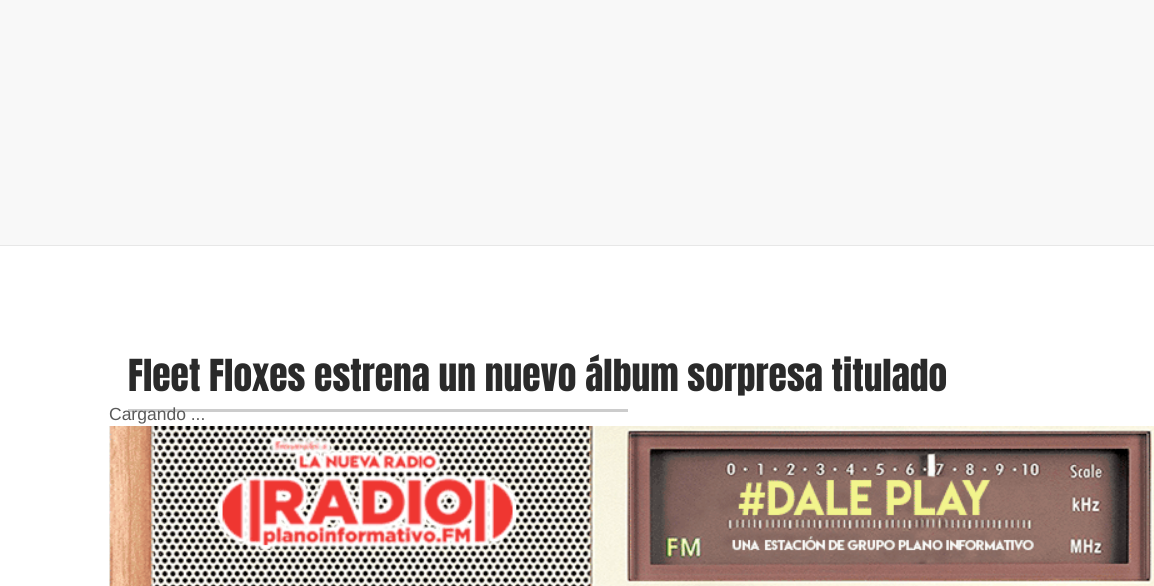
import math
import cairocffi as cairo

surface = cairo.ImageSurface(cairo.FORMAT_RGB24, 1154, 586)
cr = cairo.Context(surface)
options = cairo.FontOptions()
options.set_hint_metrics(cairo.HINT_METRICS_OFF)
options.set_hint_style(cairo.HINT_STYLE_NONE)
cr.set_font_options(options)
cr.set_miter_limit(4)


def use_color(code):
    cr.set_source_rgb(*(v / 255 for v in bytes.fromhex(code[-6:])))


def picture(path, x, y, w, h):
    cr.save()
    cr.set_source_surface(cairo.ImageSurface.create_from_png(path), x, y)
    cr.rectangle(x, y, w, h)
    cr.fill()
    cr.restore()


use_color("#ffffff")
cr.paint()
use_color("#f8f8f8")
cr.rectangle(0, 0, 1154, 245)
cr.fill()
use_color("#e7e7e7")
cr.rectangle(0, 245, 1154, 1)
cr.fill()
cr.select_font_face("Anton")
cr.set_font_size(37.5)
use_color("#2a2a2a")
cr.move_to(128, 391)
cr.show_text("Fleet Floxes estrena un nuevo álbum sorpresa titulado")
use_color("#cccccc")
cr.rectangle(128, 409, 500, 3)
cr.fill()
cr.select_font_face("Liberation Sans")
cr.set_font_size(17.5)
use_color("#5a5a5a")
cr.move_to(109, 420)
cr.show_text("Cargando ...")
picture("img1.png", 109, 426, 1045, 160)
surface.write_to_png("result.png")
